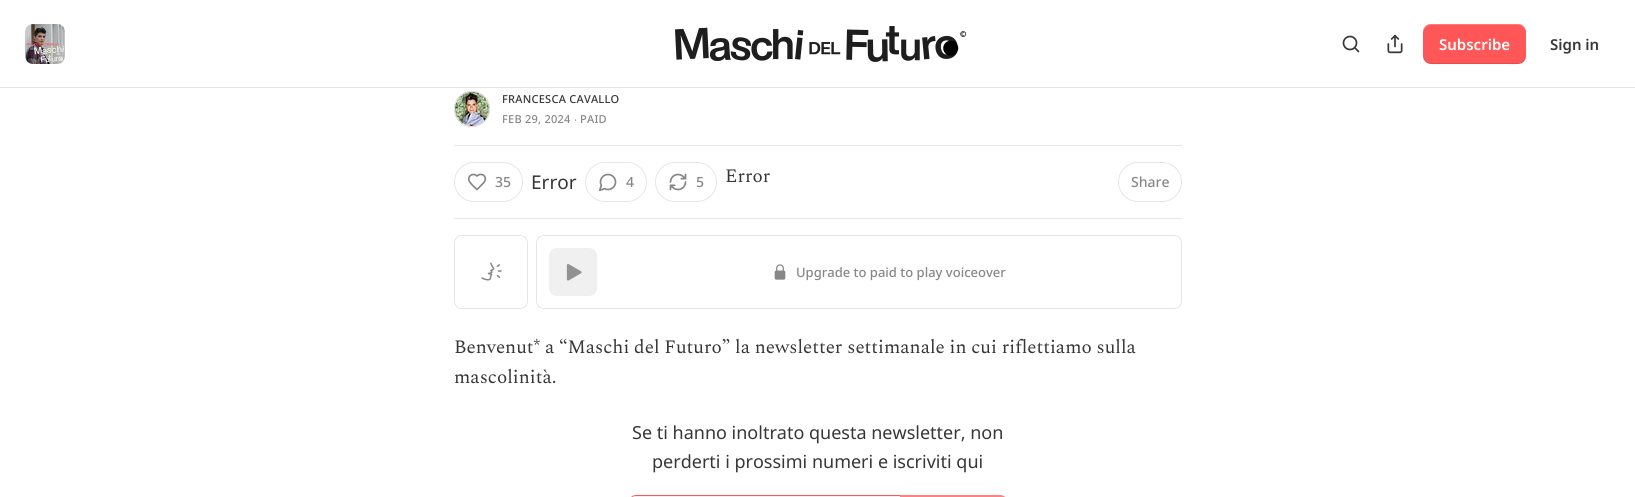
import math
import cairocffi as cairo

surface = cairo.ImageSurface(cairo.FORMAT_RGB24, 1635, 497)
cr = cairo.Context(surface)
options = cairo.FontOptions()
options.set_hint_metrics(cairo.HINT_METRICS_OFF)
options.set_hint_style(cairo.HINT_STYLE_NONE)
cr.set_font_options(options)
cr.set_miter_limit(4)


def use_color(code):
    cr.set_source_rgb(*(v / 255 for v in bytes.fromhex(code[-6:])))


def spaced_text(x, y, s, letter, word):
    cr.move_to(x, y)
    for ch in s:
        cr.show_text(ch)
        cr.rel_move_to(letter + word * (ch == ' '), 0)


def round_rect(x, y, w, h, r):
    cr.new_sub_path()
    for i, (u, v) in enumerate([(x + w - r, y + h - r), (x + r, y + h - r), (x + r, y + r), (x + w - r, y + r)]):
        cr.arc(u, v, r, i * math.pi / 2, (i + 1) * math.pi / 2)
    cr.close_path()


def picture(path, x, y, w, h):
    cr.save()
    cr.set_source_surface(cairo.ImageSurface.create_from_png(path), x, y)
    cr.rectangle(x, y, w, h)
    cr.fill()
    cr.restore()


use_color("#ffffff")
cr.paint()
use_color("#e6e6e6")
cr.rectangle(0, 87, 1635, 1)
cr.fill()
picture("img1.png", 25, 24, 40, 40)
picture("img2.png", 675, 26, 291, 36)
cr.arc(1350, 43, 6.5, 0, 2 * math.pi)
use_color("#363737")
cr.set_line_width(1.7)
cr.stroke()
cr.new_path()
cr.move_to(1358.5, 51.5)
cr.line_to(1355, 48)
cr.set_line_cap(cairo.LINE_CAP_ROUND)
cr.set_line_join(cairo.LINE_JOIN_ROUND)
cr.stroke()
picture("img3.png", 1387, 34, 16, 20)
use_color("#ff5757")
round_rect(1423, 24, 103, 40, 8)
cr.fill()
cr.set_source_rgba(0, 0, 0, 0.1)
cr.new_path()
cr.move_to(1423, 55)
cr.curve_to(1423, 67, 1437, 64, 1446, 64)
cr.line_to(1504, 64)
cr.curve_to(1512, 64, 1526, 67, 1526, 55)
cr.curve_to(1526, 59, 1522, 63, 1518, 63)
cr.line_to(1431, 63)
cr.curve_to(1427, 63, 1423, 59, 1423, 55)
cr.close_path()
cr.fill()
cr.set_source_rgba(1, 1, 1, 0.2)
cr.new_path()
cr.move_to(1431, 25)
cr.line_to(1518, 25)
cr.curve_to(1522, 25, 1526, 29, 1526, 33)
cr.curve_to(1526, 21, 1512, 24, 1504, 24)
cr.line_to(1446, 24)
cr.curve_to(1437, 24, 1423, 21, 1423, 33)
cr.curve_to(1423, 29, 1427, 25, 1431, 25)
cr.close_path()
cr.fill()
cr.select_font_face("Noto Sans SemiBold")
cr.set_font_size(15)
use_color("#ffffff")
cr.move_to(1439, 50)
cr.show_text("Subscribe")
use_color("#363737")
cr.move_to(1550, 50)
cr.show_text("Sign in")
cr.new_path()
cr.arc(472, 109, 17.5, 0, 2 * math.pi)
use_color("#e6e6e6")
cr.set_line_width(1)
cr.set_line_cap(cairo.LINE_CAP_BUTT)
cr.set_line_join(cairo.LINE_JOIN_MITER)
cr.stroke()
picture("img4.png", 454, 91, 36, 36)
cr.arc(472, 109, 17.5, 0, 2 * math.pi)
cr.stroke()
cr.select_font_face("Noto Sans Medium")
cr.set_font_size(11)
use_color("#363737")
spaced_text(502, 103, "FRANCESCA CAVALLO", 0.25, 0)
use_color("#868787")
spaced_text(502, 123, "FEB 29, 2024", 0.25, 0)
cr.select_font_face("Liberation Sans")
spaced_text(574, 123, "∙", 0.25, 0)
cr.select_font_face("Noto Sans Medium")
spaced_text(580, 123, "PAID", 0.25, 0)
use_color("#e6e6e6")
cr.rectangle(454, 145, 728, 1)
cr.fill()
cr.rectangle(454, 218, 728, 1)
cr.fill()
round_rect(454.5, 162.5, 68, 39, 19.5)
cr.stroke()
cr.new_path()
cr.move_to(483, 183.5)
cr.curve_to(489, 177.5, 482, 171.5, 477, 176)
cr.curve_to(473.5, 172.5, 467.5, 175.5, 469, 180.5)
cr.curve_to(470, 183.5, 475, 187.5, 477, 189.5)
cr.close_path()
use_color("#868787")
cr.set_line_width(1.7)
cr.set_line_cap(cairo.LINE_CAP_ROUND)
cr.set_line_join(cairo.LINE_JOIN_ROUND)
cr.stroke()
cr.set_font_size(14)
cr.move_to(495, 187)
cr.show_text("35")
cr.select_font_face("Noto Sans")
cr.set_font_size(19)
use_color("#363737")
cr.move_to(531, 189)
cr.show_text("Error")
round_rect(585.5, 162.5, 61, 39, 19.5)
use_color("#e6e6e6")
cr.set_line_width(1)
cr.set_line_cap(cairo.LINE_CAP_BUTT)
cr.set_line_join(cairo.LINE_JOIN_MITER)
cr.stroke()
picture("img5.png", 598, 173, 19, 19)
cr.select_font_face("Noto Sans Medium")
cr.set_font_size(14)
use_color("#868787")
cr.move_to(626, 187)
cr.show_text("4")
round_rect(655.5, 162.5, 61, 39, 19.5)
use_color("#e6e6e6")
cr.stroke()
picture("img6.png", 669, 173, 18, 18)
use_color("#868787")
cr.move_to(696, 187)
cr.show_text("5")
cr.select_font_face("Spectral")
cr.set_font_size(19)
use_color("#363737")
cr.move_to(725, 182)
cr.show_text("Error")
round_rect(1118.5, 162.5, 63, 39, 19.5)
use_color("#e6e6e6")
cr.stroke()
cr.select_font_face("Noto Sans Medium")
cr.set_font_size(14)
use_color("#868787")
cr.move_to(1131, 187)
cr.show_text("Share")
round_rect(454.5, 235.5, 73, 73, 7.5)
use_color("#e6e6e6")
cr.stroke()
picture("img7.png", 481, 262, 21, 19)
round_rect(536.5, 235.5, 645, 73, 7.5)
cr.stroke()
use_color("#f0f0f0")
round_rect(549, 248, 48, 48, 8)
cr.fill()
picture("img8.png", 566, 264, 16, 17)
picture("img9.png", 774, 264, 12, 16)
cr.set_font_size(13)
use_color("#868787")
cr.move_to(796, 277)
cr.show_text("Upgrade to paid to play voiceover")
cr.select_font_face("Spectral")
cr.set_font_size(19)
use_color("#363737")
cr.move_to(454, 353)
cr.show_text("Benvenut* a “Maschi del Futuro” la newsletter settimanale in cui riflettiamo sulla")
cr.move_to(454, 383)
cr.show_text("mascolinità.")
cr.select_font_face("Noto Sans")
cr.set_font_size(18)
cr.move_to(632, 439)
cr.show_text("Se ti hanno inoltrato questa newsletter, non")
cr.move_to(652, 468)
cr.show_text("perderti i prossimi numeri e iscriviti qui")
use_color("#f0f0f0")
cr.new_path()
cr.move_to(636, 496)
cr.line_to(900, 496)
cr.line_to(900, 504)
cr.line_to(636, 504)
cr.curve_to(632, 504, 629, 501, 629, 497)
cr.line_to(629, 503)
cr.curve_to(629, 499, 632, 496, 636, 496)
cr.close_path()
cr.fill()
use_color("#ff5757")
cr.set_fill_rule(cairo.FILL_RULE_EVEN_ODD)
cr.new_path()
cr.move_to(636, 495)
cr.line_to(900, 495)
cr.line_to(900, 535)
cr.line_to(636, 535)
cr.curve_to(632, 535, 628, 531, 628, 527)
cr.line_to(628, 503)
cr.curve_to(628, 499, 632, 495, 636, 495)
cr.close_path()
cr.move_to(636, 496)
cr.line_to(900, 496)
cr.line_to(900, 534)
cr.line_to(636, 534)
cr.curve_to(632, 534, 629, 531, 629, 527)
cr.line_to(629, 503)
cr.curve_to(629, 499, 632, 496, 636, 496)
cr.close_path()
cr.fill()
use_color("#ff8181")
cr.new_path()
cr.move_to(900.5, 495.5)
cr.line_to(1000, 495.5)
cr.curve_to(1004, 495.5, 1007.5, 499, 1007.5, 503)
cr.line_to(1007.5, 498)
cr.curve_to(1007.5, 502, 1004, 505.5, 1000, 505.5)
cr.line_to(900.5, 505.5)
cr.close_path()
cr.fill_preserve()
cr.stroke()
surface.write_to_png("result.png")
